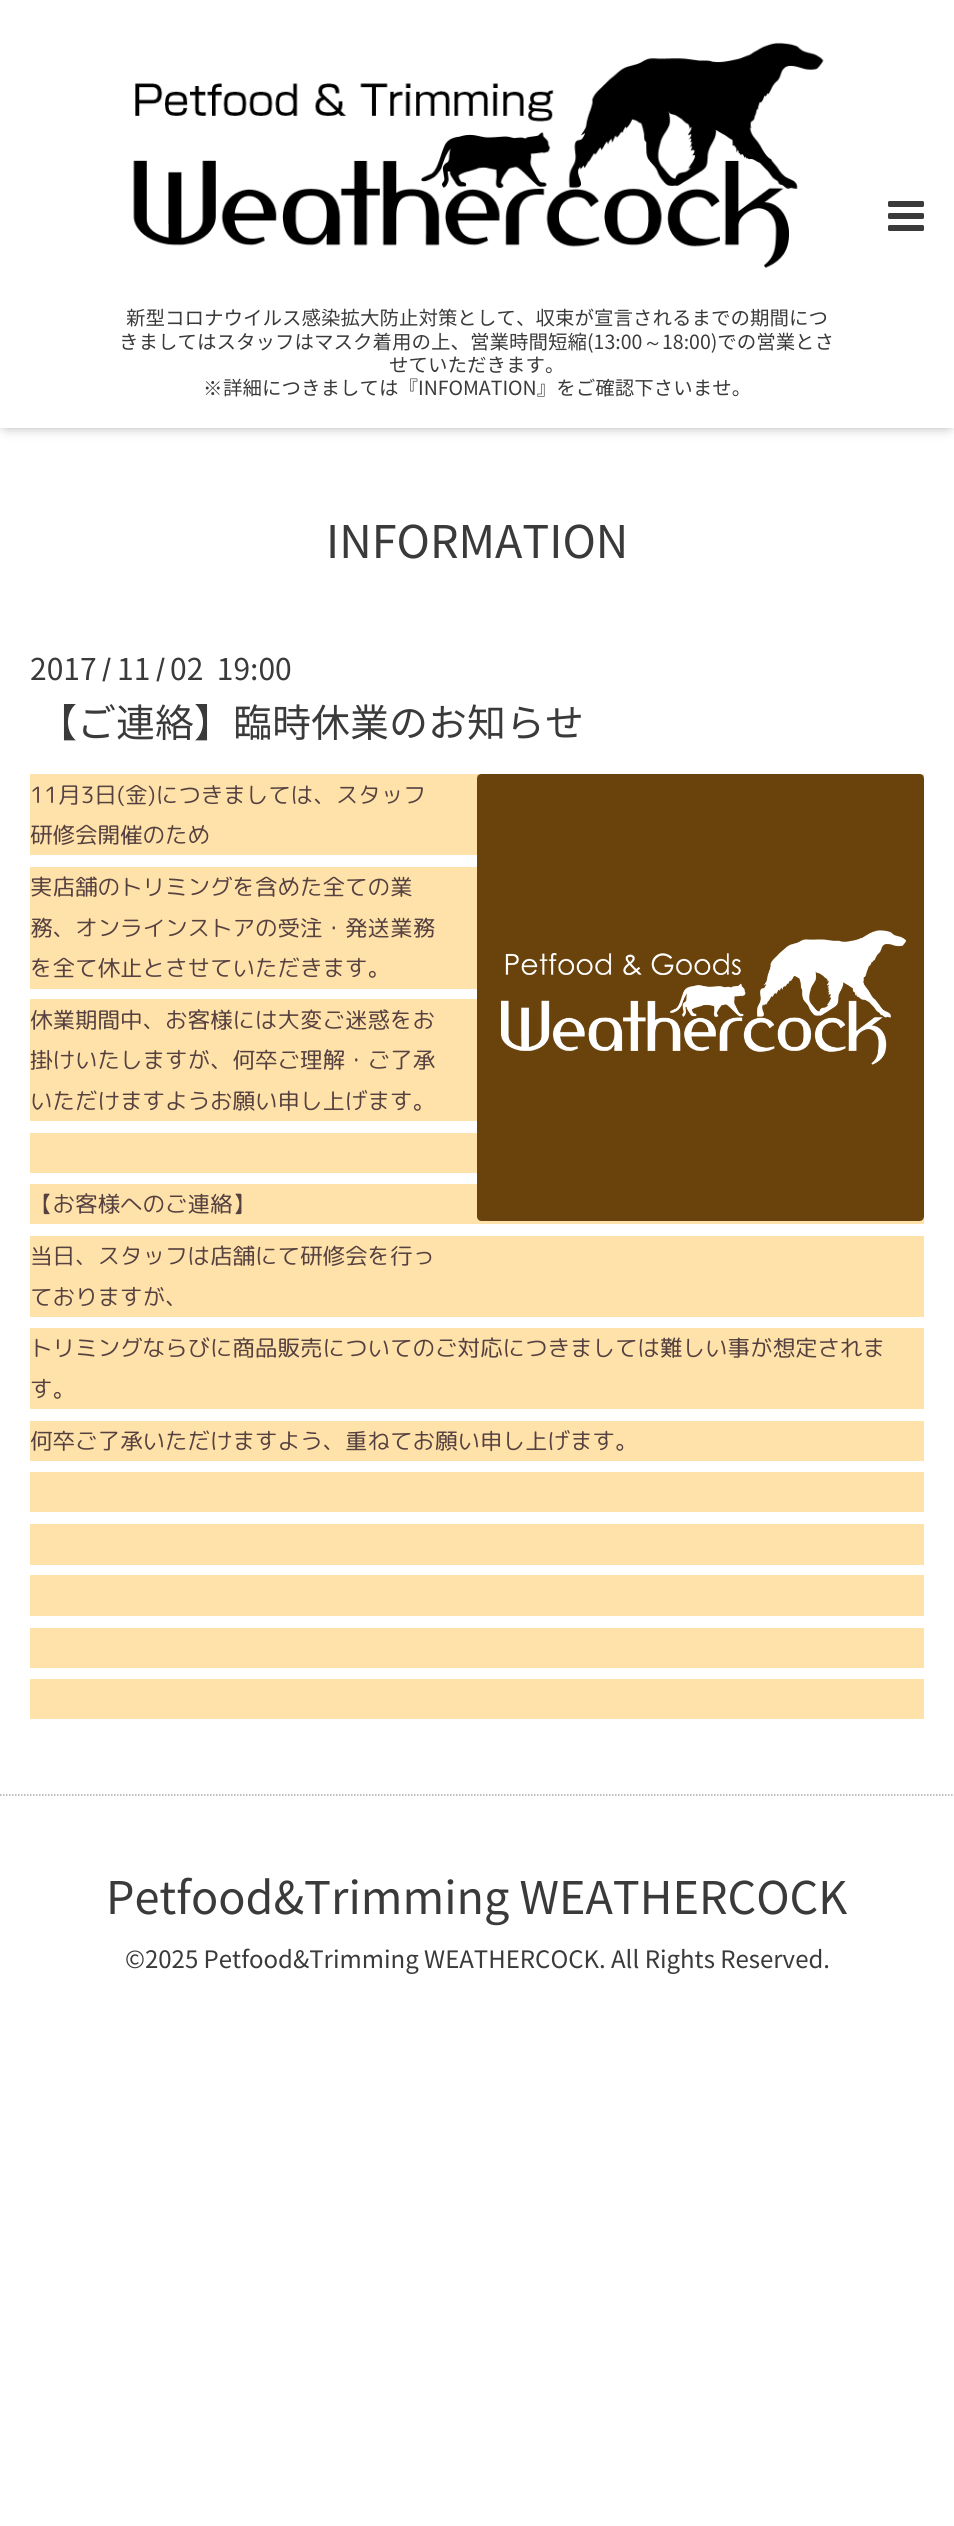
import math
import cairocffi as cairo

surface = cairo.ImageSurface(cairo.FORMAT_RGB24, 954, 2526)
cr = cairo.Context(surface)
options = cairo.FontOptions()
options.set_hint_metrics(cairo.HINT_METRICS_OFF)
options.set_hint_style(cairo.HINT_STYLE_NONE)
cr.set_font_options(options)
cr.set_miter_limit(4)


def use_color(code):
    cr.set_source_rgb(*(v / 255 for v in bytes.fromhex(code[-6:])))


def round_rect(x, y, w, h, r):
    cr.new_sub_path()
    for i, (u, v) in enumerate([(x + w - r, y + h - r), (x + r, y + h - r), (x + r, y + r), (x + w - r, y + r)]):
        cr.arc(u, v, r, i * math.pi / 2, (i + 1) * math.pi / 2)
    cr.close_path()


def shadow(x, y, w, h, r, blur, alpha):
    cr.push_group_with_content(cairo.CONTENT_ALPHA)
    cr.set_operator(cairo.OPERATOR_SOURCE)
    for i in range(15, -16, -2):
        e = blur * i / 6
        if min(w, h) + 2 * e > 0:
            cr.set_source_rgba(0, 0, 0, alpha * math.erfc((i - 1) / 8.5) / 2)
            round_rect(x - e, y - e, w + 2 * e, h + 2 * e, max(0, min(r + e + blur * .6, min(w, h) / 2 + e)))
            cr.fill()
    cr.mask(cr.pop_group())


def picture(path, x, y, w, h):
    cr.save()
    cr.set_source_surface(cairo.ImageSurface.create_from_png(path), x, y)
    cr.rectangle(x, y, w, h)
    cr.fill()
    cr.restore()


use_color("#ffffff")
cr.paint()
use_color("#000000")
shadow(6, 8, 942, 415, 0, 7.5, 0.6)
use_color("#ffffff")
cr.rectangle(0, 0, 954, 428)
cr.fill()
picture("img1.png", 888, 201, 36, 30)
picture("img2.png", 133, 42, 691, 226)
cr.select_font_face("Noto Sans JP")
cr.set_font_size(19.5)
use_color("#3a3a3a")
cr.move_to(126, 325)
cr.show_text("新型コロナウイルス感染拡大防止対策として、収束が宣言されるまでの期間につ")
cr.move_to(119, 349)
cr.show_text("きましてはスタッフはマスク着用の上、営業時間短縮(13:00")
cr.select_font_face("WenQuanYi Zen Hei Medium")
cr.move_to(643, 349)
cr.show_text("～")
cr.select_font_face("Noto Sans JP")
cr.move_to(662, 349)
cr.show_text("18:00)での営業とさ")
cr.move_to(389, 372)
cr.show_text("せていただきます。")
cr.select_font_face("WenQuanYi Zen Hei Medium")
cr.move_to(203, 395)
cr.show_text("※")
cr.select_font_face("Noto Sans JP")
cr.move_to(223, 395)
cr.show_text("詳細につきましては『INFOMATION』をご確認下さいませ。")
cr.set_font_size(45)
cr.move_to(326, 558)
cr.show_text("INFORMATION")
cr.set_font_size(30)
cr.move_to(30, 680)
cr.show_text("2017")
cr.select_font_face("Noto Sans JP", cairo.FONT_SLANT_NORMAL, cairo.FONT_WEIGHT_BOLD)
cr.set_font_size(24)
cr.move_to(102, 677)
cr.show_text("/")
cr.select_font_face("Noto Sans JP")
cr.set_font_size(30)
cr.move_to(117, 680)
cr.show_text("11")
cr.select_font_face("Noto Sans JP", cairo.FONT_SLANT_NORMAL, cairo.FONT_WEIGHT_BOLD)
cr.set_font_size(24)
cr.move_to(156, 677)
cr.show_text("/")
cr.select_font_face("Noto Sans JP")
cr.set_font_size(30)
cr.move_to(170, 680)
cr.show_text("02  19:00")
cr.set_font_size(39)
cr.move_to(38, 737)
cr.show_text("【ご連絡】臨時休業のお知らせ")
use_color("#ffe2a9")
cr.rectangle(30, 774, 894, 81)
cr.fill()
cr.rectangle(30, 1184, 894, 40)
cr.fill()
picture("img3.png", 477, 774, 447, 447)
cr.select_font_face("Rounded Mplus 1c")
cr.set_font_size(22.5)
use_color("#564141")
cr.move_to(30, 803)
cr.show_text("11月3日(金)につきましては、スタッフ")
cr.move_to(30, 843)
cr.show_text("研修会開催のため")
use_color("#ffe2a9")
cr.rectangle(30, 867, 447, 122)
cr.fill()
use_color("#564141")
cr.move_to(30, 895)
cr.show_text("実店舗のトリミングを含めた全ての業")
cr.move_to(30, 936)
cr.show_text("務、オンラインストアの受注・発送業務")
cr.move_to(30, 976)
cr.show_text("を全て休止とさせていただきます。")
use_color("#ffe2a9")
cr.rectangle(30, 999, 447, 122)
cr.fill()
use_color("#564141")
cr.move_to(30, 1028)
cr.show_text("休業期間中、お客様には大変ご迷惑をお")
cr.move_to(30, 1068)
cr.show_text("掛けいたしますが、何卒ご理解・ご了承")
cr.move_to(30, 1109)
cr.show_text("いただけますようお願い申し上げます。")
use_color("#ffe2a9")
cr.rectangle(30, 1133, 447, 40)
cr.fill()
use_color("#564141")
cr.move_to(30, 1212)
cr.show_text("【お客様へのご連絡】")
use_color("#ffe2a9")
cr.rectangle(30, 1236, 894, 81)
cr.fill()
use_color("#564141")
cr.move_to(30, 1264)
cr.show_text("当日、スタッフは店舗にて研修会を行っ")
cr.move_to(30, 1305)
cr.show_text("ておりますが、")
use_color("#ffe2a9")
cr.rectangle(30, 1328, 894, 81)
cr.fill()
use_color("#564141")
cr.move_to(30, 1356)
cr.show_text("トリミングならびに商品販売についてのご対応につきましては難しい事が想定されま")
cr.move_to(30, 1397)
cr.show_text("す。")
use_color("#ffe2a9")
cr.rectangle(30, 1421, 894, 40)
cr.fill()
use_color("#564141")
cr.move_to(30, 1449)
cr.show_text("何卒ご了承いただけますよう、重ねてお願い申し上げます。")
use_color("#ffe2a9")
cr.rectangle(30, 1472, 894, 40)
cr.fill()
cr.rectangle(30, 1524, 894, 41)
cr.fill()
cr.rectangle(30, 1575, 894, 41)
cr.fill()
cr.rectangle(30, 1628, 894, 40)
cr.fill()
cr.rectangle(30, 1679, 894, 40)
cr.fill()
cr.new_path()
cr.move_to(0, 1795)
cr.line_to(954, 1795)
use_color("#a9a9a9")
cr.set_line_width(1.5)
cr.set_dash([1.5, 1.5])
cr.stroke()
cr.select_font_face("Noto Sans JP")
cr.set_font_size(45)
use_color("#3a3a3a")
cr.move_to(106, 1914)
cr.show_text("Petfood&Trimming WEATHERCOCK")
cr.set_font_size(24)
cr.move_to(125, 1968)
cr.show_text("©2025 Petfood&Trimming WEATHERCOCK. All Rights Reserved.")
surface.write_to_png("result.png")
